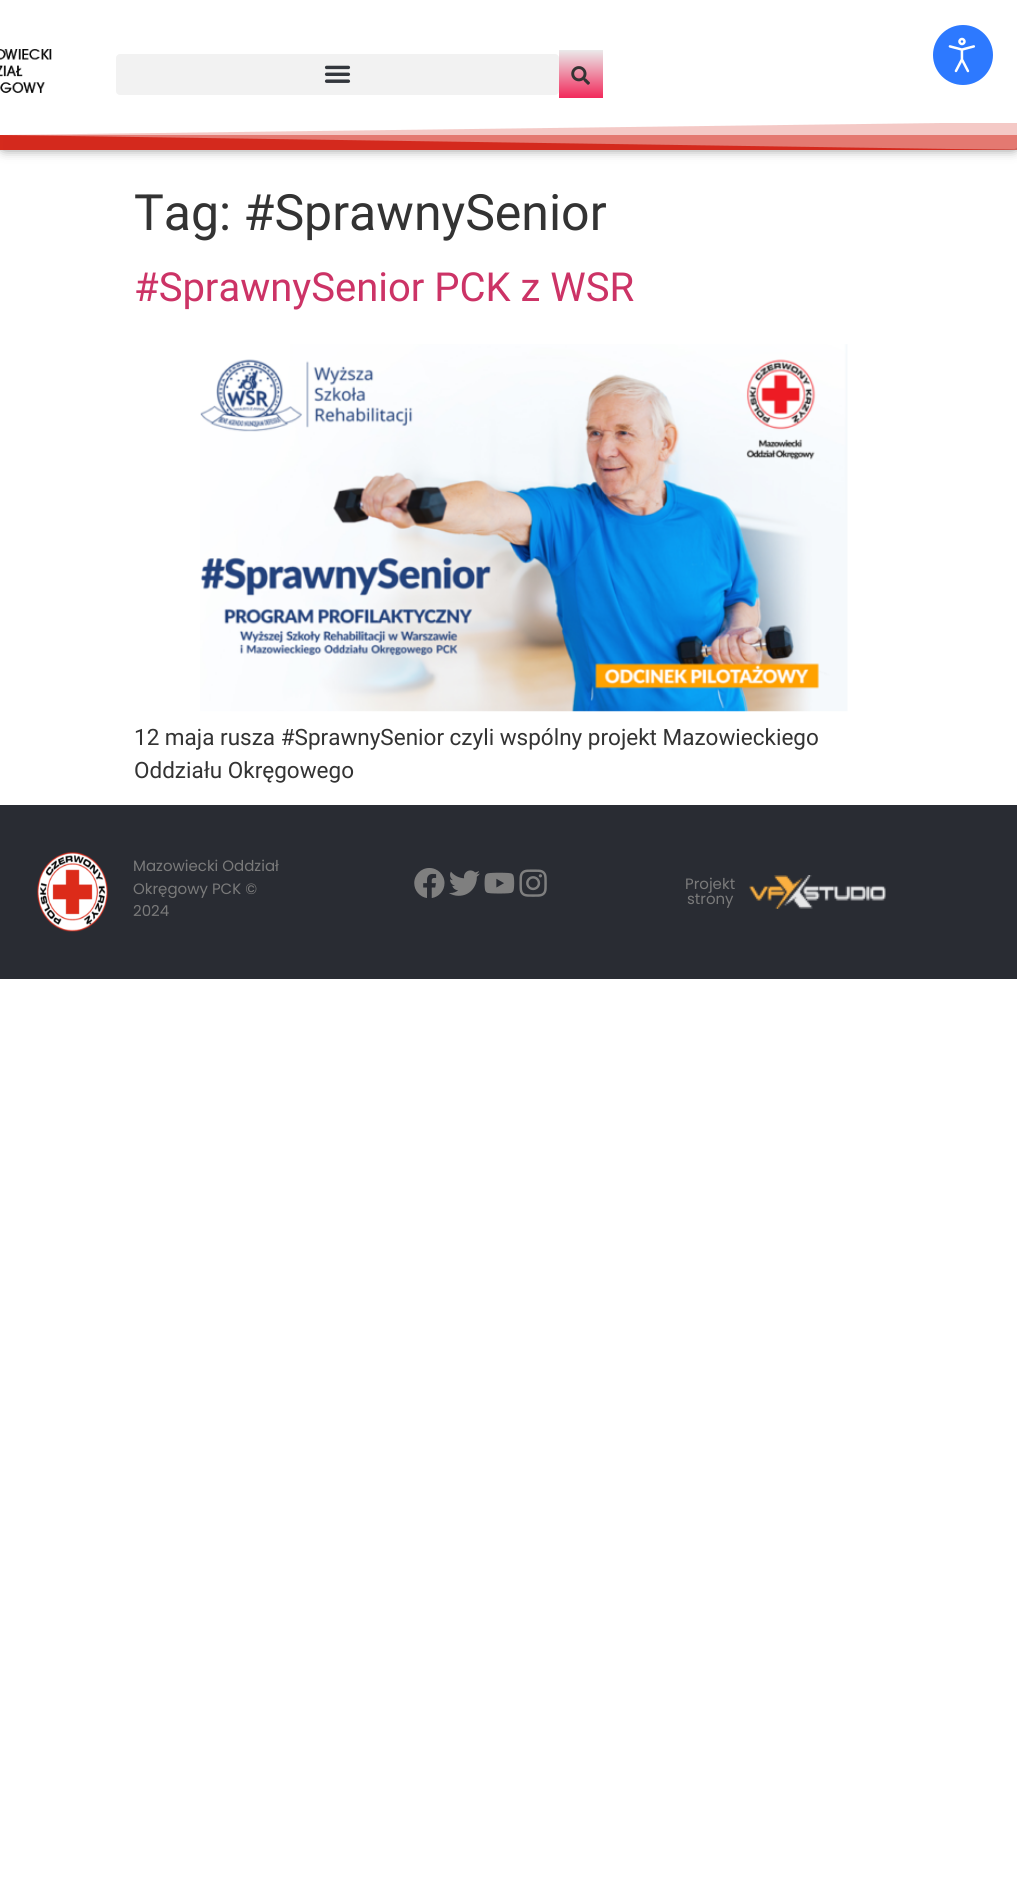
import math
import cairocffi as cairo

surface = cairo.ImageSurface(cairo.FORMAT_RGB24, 1017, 1880)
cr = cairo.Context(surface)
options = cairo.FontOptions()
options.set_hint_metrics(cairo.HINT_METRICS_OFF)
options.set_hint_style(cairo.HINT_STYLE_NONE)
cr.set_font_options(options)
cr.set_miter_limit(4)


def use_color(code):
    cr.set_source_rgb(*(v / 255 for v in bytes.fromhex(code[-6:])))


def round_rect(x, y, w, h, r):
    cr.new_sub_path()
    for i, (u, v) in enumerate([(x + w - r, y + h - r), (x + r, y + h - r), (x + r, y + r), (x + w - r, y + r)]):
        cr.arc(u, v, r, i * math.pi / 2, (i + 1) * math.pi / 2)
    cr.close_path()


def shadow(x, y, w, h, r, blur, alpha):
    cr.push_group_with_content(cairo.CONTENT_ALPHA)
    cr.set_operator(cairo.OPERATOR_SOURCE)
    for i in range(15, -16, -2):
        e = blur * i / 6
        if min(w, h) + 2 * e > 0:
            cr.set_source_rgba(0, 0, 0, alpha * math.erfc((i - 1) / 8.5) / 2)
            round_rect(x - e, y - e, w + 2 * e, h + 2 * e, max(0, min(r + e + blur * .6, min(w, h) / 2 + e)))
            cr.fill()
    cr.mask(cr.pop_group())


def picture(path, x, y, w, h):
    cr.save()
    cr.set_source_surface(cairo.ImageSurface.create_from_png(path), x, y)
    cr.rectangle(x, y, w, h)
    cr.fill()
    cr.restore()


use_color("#ffffff")
cr.paint()
cr.save()
cr.set_fill_rule(cairo.FILL_RULE_EVEN_ODD)
cr.new_path()
cr.move_to(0, 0)
cr.line_to(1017, 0)
cr.line_to(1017, 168)
cr.line_to(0, 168)
cr.close_path()
cr.move_to(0, 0)
cr.line_to(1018, 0)
cr.line_to(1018, 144)
cr.curve_to(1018, 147, 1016, 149, 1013, 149)
cr.line_to(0, 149)
cr.close_path()
cr.clip()
use_color("#000000")
shadow(0, 0, 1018, 149, 5, 6, 0.5)
cr.restore()
use_color("#2d79ff")
cr.arc(963, 55, 30, 0, 2 * math.pi)
cr.fill()
picture("img1.png", 948, 37, 27, 36)
picture("img2.png", 0, 49, 52, 44)
use_color("#f2f2f2")
round_rect(116, 54, 443, 41, 4)
cr.fill()
picture("img3.png", 324, 65, 27, 18)
gradient = cairo.LinearGradient(581, 50, 581, 98)
gradient.add_color_stop_rgba(0, 0.918, 0.918, 0.918, 1)
gradient.add_color_stop_rgba(1, 0.949, 0.161, 0.357, 1)
cr.set_source(gradient)
cr.rectangle(559, 50, 44, 48)
cr.fill()
picture("img4.png", 571, 66, 19, 19)
use_color("#d52b1e")
cr.new_path()
cr.move_to(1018, 150)
cr.line_to(-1, 150)
cr.line_to(-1, 135)
cr.close_path()
cr.fill()
cr.set_source_rgba(0.835, 0.169, 0.118, 0.5)
cr.rectangle(3, 135, 1014, 15)
cr.fill()
cr.save()
cr.rectangle(0, 123, 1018, 27)
cr.clip()
cr.set_source_rgba(0.835, 0.169, 0.118, 0.25)
cr.new_path()
cr.move_to(-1, 150)
cr.line_to(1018, 150)
cr.line_to(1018, 122)
cr.line_to(-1, 135)
cr.close_path()
cr.fill()
cr.restore()
cr.select_font_face("Roboto")
cr.set_font_size(50)
use_color("#333333")
cr.move_to(134, 230)
cr.show_text("Tag: #SprawnySenior")
cr.set_font_size(40)
use_color("#cc3366")
cr.move_to(134, 301)
cr.show_text("#SprawnySenior PCK z WSR")
picture("img5.png", 200, 344, 648, 368)
cr.set_font_size(22.5)
use_color("#333333")
cr.move_to(134, 745)
cr.show_text("12 maja rusza #SprawnySenior czyli wspólny projekt Mazowieckiego")
cr.move_to(134, 778)
cr.show_text("Oddziału Okręgowego")
use_color("#292c33")
cr.rectangle(0, 805, 1017, 174)
cr.fill()
picture("img6.png", 37, 852, 71, 80)
cr.select_font_face("Poppins")
cr.set_font_size(15)
use_color("#7a7a7a")
cr.move_to(133, 871)
cr.show_text("Mazowiecki Oddział")
cr.move_to(133, 894)
cr.show_text("Okręgowy PCK ©")
cr.move_to(133, 916)
cr.show_text("2024")
picture("img7.png", 414, 868, 31, 30)
picture("img8.png", 449, 870, 31, 26)
picture("img9.png", 484, 872, 31, 22)
picture("img10.png", 519, 869, 28, 28)
cr.move_to(685, 889)
cr.show_text("Projekt")
cr.move_to(687, 904)
cr.show_text("strony")
picture("img11.png", 749, 875, 137, 34)
surface.write_to_png("result.png")
